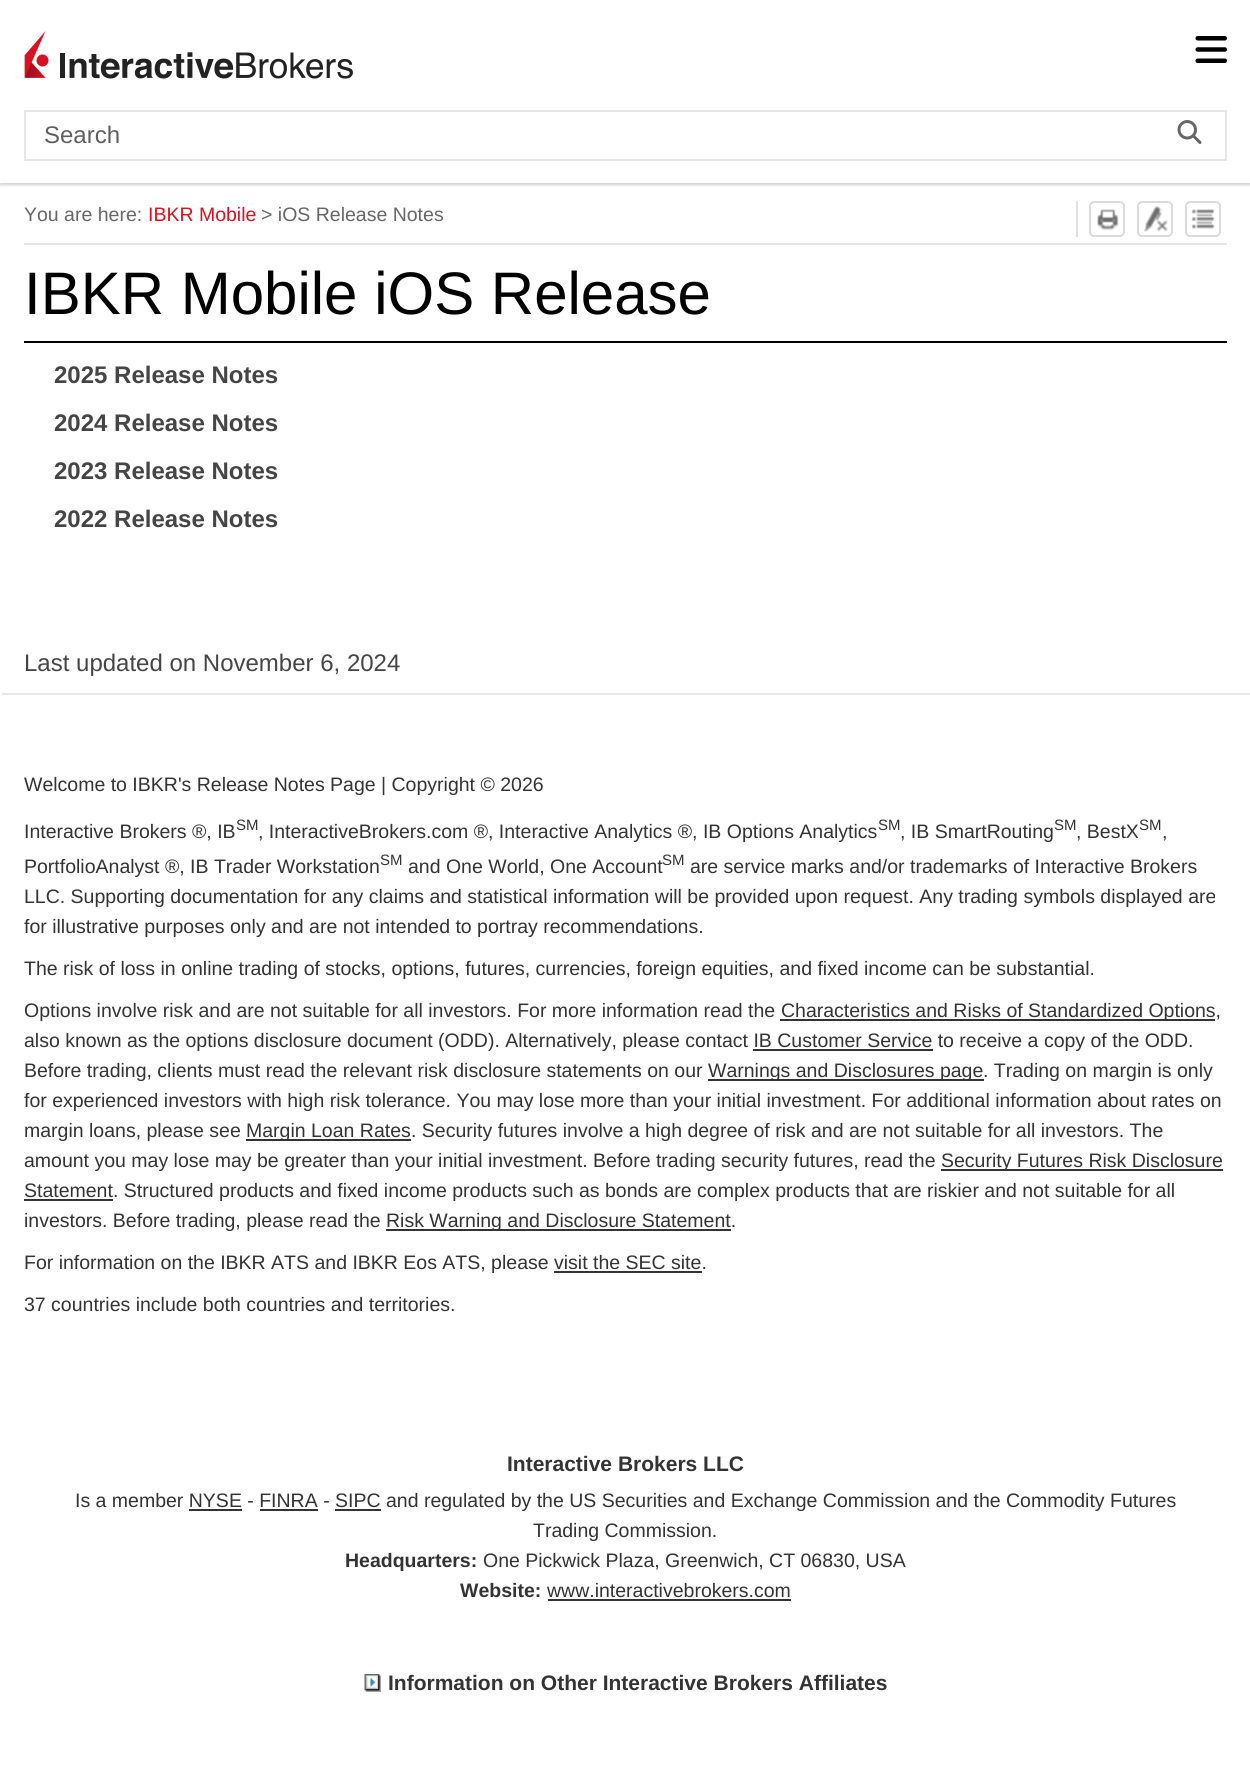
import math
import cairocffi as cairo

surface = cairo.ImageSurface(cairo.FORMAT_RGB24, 1250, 1781)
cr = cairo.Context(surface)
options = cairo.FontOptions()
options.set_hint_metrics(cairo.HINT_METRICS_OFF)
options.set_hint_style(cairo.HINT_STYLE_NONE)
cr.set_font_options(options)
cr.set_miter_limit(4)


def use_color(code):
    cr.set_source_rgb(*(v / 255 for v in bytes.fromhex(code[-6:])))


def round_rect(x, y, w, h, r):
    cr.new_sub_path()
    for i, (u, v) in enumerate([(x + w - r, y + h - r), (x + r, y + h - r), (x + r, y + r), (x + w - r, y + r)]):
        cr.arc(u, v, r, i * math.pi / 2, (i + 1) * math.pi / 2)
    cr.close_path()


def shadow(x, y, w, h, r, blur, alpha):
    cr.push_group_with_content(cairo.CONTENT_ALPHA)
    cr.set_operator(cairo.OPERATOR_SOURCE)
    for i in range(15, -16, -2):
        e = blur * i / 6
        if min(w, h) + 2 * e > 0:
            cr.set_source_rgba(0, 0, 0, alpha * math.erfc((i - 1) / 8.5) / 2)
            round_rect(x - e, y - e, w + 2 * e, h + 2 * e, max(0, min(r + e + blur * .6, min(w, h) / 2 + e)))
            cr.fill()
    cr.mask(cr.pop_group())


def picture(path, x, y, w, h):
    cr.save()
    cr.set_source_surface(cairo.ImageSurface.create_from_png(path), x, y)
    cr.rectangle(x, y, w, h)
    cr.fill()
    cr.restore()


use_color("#ffffff")
cr.paint()
cr.save()
cr.rectangle(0, 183, 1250, 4)
cr.clip()
use_color("#000000")
shadow(0, 2, 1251, 183, 0, 1.5, 0.2)
cr.restore()
picture("img1.png", 1195, 36, 32, 27)
picture("img2.png", 24, 31, 329, 48)
cr.rectangle(25, 111, 1201, 49)
use_color("#e6e6e6")
cr.stroke()
cr.select_font_face("Liberation Sans")
cr.set_font_size(24)
use_color("#5f5f5f")
cr.move_to(44, 143)
cr.show_text("Search")
picture("img3.png", 1177, 120, 25, 24)
use_color("#e6e6e6")
cr.rectangle(24, 243, 1203, 2)
cr.fill()
cr.set_font_size(19.5)
use_color("#666666")
cr.move_to(24, 221)
cr.show_text("You are here:")
use_color("#d91222")
cr.move_to(148, 221)
cr.show_text("IBKR Mobile")
use_color("#666666")
cr.move_to(261, 221)
cr.show_text("> iOS Release Notes")
use_color("#e1e1e1")
cr.rectangle(1076, 201, 2, 36)
cr.fill()
round_rect(1090, 202, 34, 34, 4)
use_color("#dadada")
cr.stroke()
picture("img4.png", 1097, 209, 22, 22)
round_rect(1138, 202, 34, 34, 4)
cr.stroke()
picture("img5.png", 1143, 206, 25, 26)
round_rect(1186, 202, 34, 34, 4)
cr.stroke()
picture("img6.png", 1191, 209, 24, 20)
cr.set_font_size(60)
use_color("#000000")
cr.move_to(24, 314)
cr.show_text("IBKR Mobile iOS Release")
cr.rectangle(24, 341, 1203, 2)
cr.fill()
cr.select_font_face("Liberation Sans", cairo.FONT_SLANT_NORMAL, cairo.FONT_WEIGHT_BOLD)
cr.set_font_size(24)
use_color("#454545")
cr.move_to(54, 383)
cr.show_text("2025 Release Notes")
cr.move_to(54, 431)
cr.show_text("2024 Release Notes")
cr.move_to(54, 479)
cr.show_text("2023 Release Notes")
cr.move_to(54, 527)
cr.show_text("2022 Release Notes")
cr.select_font_face("Liberation Sans")
cr.move_to(24, 671)
cr.show_text("Last updated on November 6, 2024")
use_color("#e6e6e6")
cr.rectangle(2, 693, 1248, 2)
cr.fill()
cr.set_font_size(19.5)
use_color("#333333")
cr.move_to(24, 791)
cr.show_text("Welcome to IBKR's Release Notes Page | Copyright © 2026")
cr.move_to(24, 838)
cr.show_text("Interactive Brokers ®, IB")
cr.set_font_size(15)
cr.move_to(236, 830)
cr.show_text("SM")
cr.set_font_size(19.5)
cr.move_to(258, 838)
cr.show_text(", InteractiveBrokers.com ®, Interactive Analytics ®, IB Options Analytics")
cr.set_font_size(15)
cr.move_to(878, 830)
cr.show_text("SM")
cr.set_font_size(19.5)
cr.move_to(900, 838)
cr.show_text(", IB SmartRouting")
cr.set_font_size(15)
cr.move_to(1054, 830)
cr.show_text("SM")
cr.set_font_size(19.5)
cr.move_to(1076, 838)
cr.show_text(", BestX")
cr.set_font_size(15)
cr.move_to(1139, 830)
cr.show_text("SM")
cr.set_font_size(19.5)
cr.move_to(1162, 838)
cr.show_text(",")
cr.move_to(24, 873)
cr.show_text("PortfolioAnalyst ®, IB Trader Workstation")
cr.set_font_size(15)
cr.move_to(380, 865)
cr.show_text("SM")
cr.set_font_size(19.5)
cr.move_to(408, 873)
cr.show_text("and One World, One Account")
cr.set_font_size(15)
cr.move_to(662, 865)
cr.show_text("SM")
cr.set_font_size(19.5)
cr.move_to(690, 873)
cr.show_text("are service marks and/or trademarks of Interactive Brokers")
cr.move_to(24, 903)
cr.show_text("LLC. Supporting documentation for any claims and statistical information will be provided upon request. Any trading symbols displayed are")
cr.move_to(24, 933)
cr.show_text("for illustrative purposes only and are not intended to portray recommendations.")
cr.move_to(24, 975)
cr.show_text("The risk of loss in online trading of stocks, options, futures, currencies, foreign equities, and fixed income can be substantial.")
cr.move_to(24, 1017)
cr.show_text("Options involve risk and are not suitable for all investors. For more information read the")
cr.rectangle(780, 1019, 435, 2)
cr.fill()
cr.move_to(781, 1017)
cr.show_text("Characteristics and Risks of Standardized Options,")
cr.move_to(24, 1047)
cr.show_text("also known as the options disclosure document (ODD). Alternatively, please contact IB Customer Service to receive a copy of the ODD.")
cr.rectangle(753, 1049, 180, 2)
cr.fill()
cr.move_to(24, 1077)
cr.show_text("Before trading, clients must read the relevant risk disclosure statements on our")
cr.rectangle(708, 1079, 276, 2)
cr.fill()
cr.move_to(708, 1077)
cr.show_text("Warnings and Disclosures page")
cr.move_to(983, 1077)
cr.show_text(". Trading on margin is only")
cr.move_to(24, 1107)
cr.show_text("for experienced investors with high risk tolerance. You may lose more than your initial investment. For additional information about rates on")
cr.move_to(24, 1137)
cr.show_text("margin loans, please see")
cr.rectangle(246, 1139, 165, 2)
cr.fill()
cr.move_to(246, 1137)
cr.show_text("Margin Loan Rates")
cr.move_to(411, 1137)
cr.show_text(". Security futures involve a high degree of risk and are not suitable for all investors. The")
cr.move_to(24, 1167)
cr.show_text("amount you may lose may be greater than your initial investment. Before trading security futures, read the")
cr.rectangle(941, 1169, 282, 2)
cr.fill()
cr.move_to(941, 1167)
cr.show_text("Security Futures Risk Disclosure")
cr.rectangle(24, 1199, 89, 2)
cr.fill()
cr.move_to(24, 1197)
cr.show_text("Statement. Structured products and fixed income products such as bonds are complex products that are riskier and not suitable for all")
cr.move_to(24, 1227)
cr.show_text("investors. Before trading, please read the")
cr.rectangle(386, 1229, 345, 2)
cr.fill()
cr.move_to(386, 1227)
cr.show_text("Risk Warning and Disclosure Statement.")
cr.move_to(24, 1269)
cr.show_text("For information on the IBKR ATS and IBKR Eos ATS, please visit the SEC site.")
cr.rectangle(554, 1271, 148, 2)
cr.fill()
cr.move_to(24, 1311)
cr.show_text("37 countries include both countries and territories.")
cr.select_font_face("Liberation Sans", cairo.FONT_SLANT_NORMAL, cairo.FONT_WEIGHT_BOLD)
cr.set_font_size(21)
cr.move_to(507, 1471)
cr.show_text("Interactive Brokers LLC")
cr.select_font_face("Liberation Sans")
cr.set_font_size(19.5)
cr.move_to(75, 1507)
cr.show_text("Is a member NYSE - FINRA - SIPC and regulated by the US Securities and Exchange Commission and the Commodity Futures")
cr.rectangle(189, 1509, 53, 2)
cr.fill()
cr.rectangle(260, 1509, 58, 2)
cr.fill()
cr.rectangle(335, 1509, 46, 2)
cr.fill()
cr.move_to(533, 1537)
cr.show_text("Trading Commission.")
cr.select_font_face("Liberation Sans", cairo.FONT_SLANT_NORMAL, cairo.FONT_WEIGHT_BOLD)
cr.move_to(345, 1567)
cr.show_text("Headquarters:")
cr.select_font_face("Liberation Sans")
cr.move_to(483, 1567)
cr.show_text("One Pickwick Plaza, Greenwich, CT 06830, USA")
cr.select_font_face("Liberation Sans", cairo.FONT_SLANT_NORMAL, cairo.FONT_WEIGHT_BOLD)
cr.move_to(460, 1597)
cr.show_text("Website:")
cr.select_font_face("Liberation Sans")
cr.move_to(547, 1597)
cr.show_text("www.interactivebrokers.com")
cr.rectangle(548, 1599, 243, 2)
cr.fill()
picture("img7.png", 364, 1674, 17, 18)
cr.select_font_face("Liberation Sans", cairo.FONT_SLANT_NORMAL, cairo.FONT_WEIGHT_BOLD)
cr.set_font_size(21)
cr.move_to(388, 1690)
cr.show_text("Information on Other Interactive Brokers Affiliates")
surface.write_to_png("result.png")
